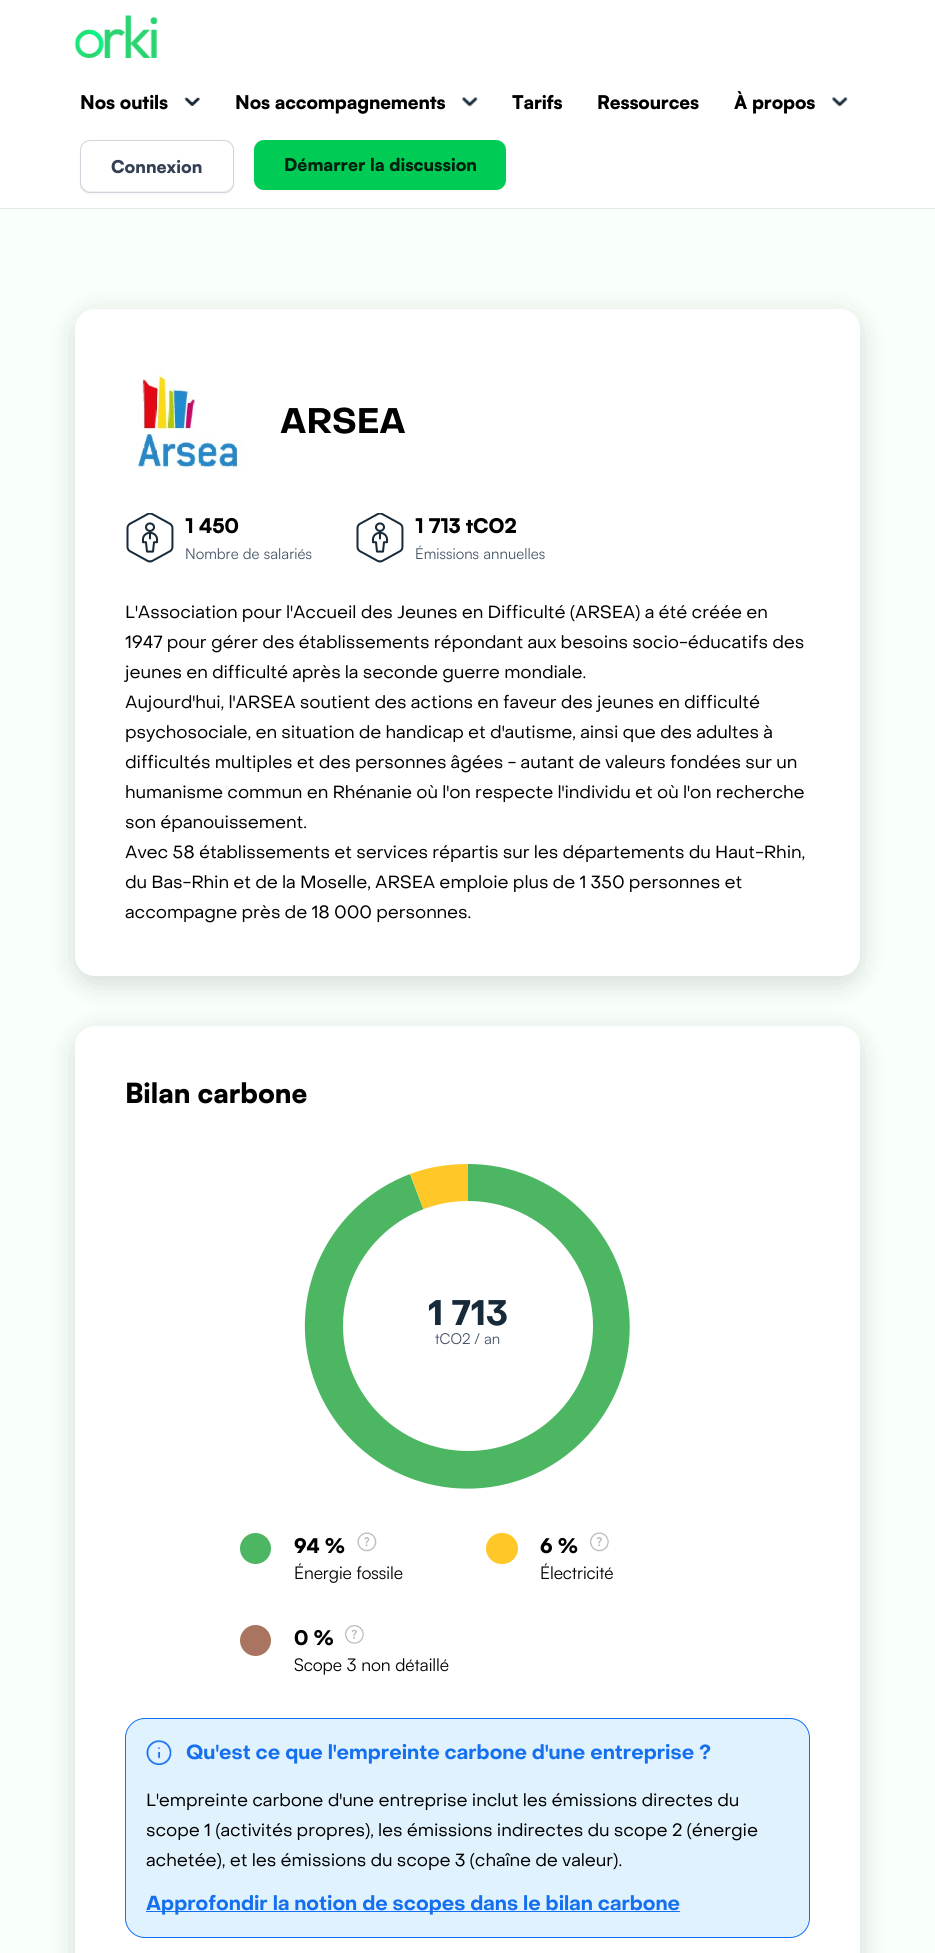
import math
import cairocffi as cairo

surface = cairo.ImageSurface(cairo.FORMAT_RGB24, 935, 1953)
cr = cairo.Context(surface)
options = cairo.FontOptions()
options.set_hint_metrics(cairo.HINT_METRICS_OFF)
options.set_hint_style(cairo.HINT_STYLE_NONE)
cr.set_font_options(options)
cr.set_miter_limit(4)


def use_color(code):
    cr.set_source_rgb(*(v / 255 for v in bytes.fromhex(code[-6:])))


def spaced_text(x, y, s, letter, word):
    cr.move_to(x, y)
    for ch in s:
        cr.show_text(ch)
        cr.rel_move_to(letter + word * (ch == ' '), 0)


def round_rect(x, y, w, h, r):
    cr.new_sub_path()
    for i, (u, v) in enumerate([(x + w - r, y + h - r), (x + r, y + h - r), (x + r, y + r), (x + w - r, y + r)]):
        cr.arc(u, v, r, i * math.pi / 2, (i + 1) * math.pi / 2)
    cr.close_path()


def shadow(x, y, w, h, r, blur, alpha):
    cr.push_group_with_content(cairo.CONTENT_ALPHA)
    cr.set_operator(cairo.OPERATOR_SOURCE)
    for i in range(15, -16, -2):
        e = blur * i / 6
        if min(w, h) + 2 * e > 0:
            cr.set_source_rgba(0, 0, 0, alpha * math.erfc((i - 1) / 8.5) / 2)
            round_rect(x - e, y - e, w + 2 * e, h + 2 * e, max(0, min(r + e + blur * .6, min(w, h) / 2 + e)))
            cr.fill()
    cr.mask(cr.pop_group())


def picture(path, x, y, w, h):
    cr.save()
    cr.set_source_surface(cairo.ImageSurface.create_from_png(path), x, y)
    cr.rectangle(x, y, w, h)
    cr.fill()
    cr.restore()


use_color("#ffffff")
cr.paint()
use_color("#e6e9e9")
cr.rectangle(0, 208, 935, 1)
cr.fill()
picture("img1.png", 74, 15, 84, 43)
cr.select_font_face("Satoshi Black")
cr.set_font_size(18.75)
use_color("#000000")
spaced_text(80, 109, "Nos outils", -0.1, 0)
picture("img2.png", 184, 97, 16, 9)
spaced_text(235, 109, "Nos accompagnements", -0.1, 0)
picture("img3.png", 462, 97, 16, 10)
spaced_text(512, 109, "Tarifs", -0.1, 0)
spaced_text(597, 109, "Ressources", -0.1, 0)
spaced_text(734, 109, "À propos", -0.1, 0)
picture("img3.png", 832, 97, 16, 10)
use_color("#101828")
shadow(80, 141, 154, 53, 10, 1, 0.05)
use_color("#f1f1f1")
round_rect(80.5, 140.5, 153, 52, 9.5)
cr.fill_preserve()
use_color("#d0d5dd")
cr.set_line_width(1)
cr.stroke()
cr.save()
round_rect(81, 141, 152, 50, 9)
cr.clip()
use_color("#ffffff")
round_rect(81, 141, 152, 50, 10)
cr.fill()
cr.restore()
cr.set_font_size(17.5)
use_color("#344054")
cr.move_to(111, 173)
cr.show_text("Connexion")
use_color("#101828")
shadow(254, 141, 252, 50, 10, 1, 0.05)
use_color("#00cc55")
round_rect(254, 140, 252, 50, 10)
cr.fill()
use_color("#00220e")
cr.move_to(284, 171)
cr.show_text("Démarrer la discussion")
use_color("#f9fff9")
cr.rectangle(0, 209, 935, 1744)
cr.fill()
use_color("#000000")
shadow(75, 315, 785, 668, 20, 14, 0.15)
use_color("#ffffff")
round_rect(75, 309, 785, 667, 20)
cr.fill()
picture("img4.png", 135, 368, 110, 101)
cr.select_font_face("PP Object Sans", cairo.FONT_SLANT_NORMAL, cairo.FONT_WEIGHT_BOLD)
cr.set_font_size(35)
use_color("#000000")
cr.move_to(280, 433)
cr.show_text("ARSEA")
picture("img5.png", 126, 513, 48, 50)
cr.select_font_face("Satoshi Black")
cr.set_font_size(20)
cr.move_to(185, 533)
cr.show_text("1 450")
cr.select_font_face("Satoshi")
cr.set_font_size(15)
use_color("#475569")
cr.move_to(185, 559)
cr.show_text("Nombre de salariés")
picture("img5.png", 356, 513, 48, 50)
cr.select_font_face("Satoshi Black")
cr.set_font_size(20)
use_color("#000000")
cr.move_to(415, 533)
cr.show_text("1 713 tCO2")
cr.select_font_face("Satoshi")
cr.set_font_size(15)
use_color("#475569")
cr.move_to(415, 559)
cr.show_text("Émissions annuelles")
cr.select_font_face("PP Object Sans")
cr.set_font_size(17.5)
use_color("#000000")
spaced_text(125, 618, "L'Association pour l'Accueil des Jeunes en Difficulté (ARSEA) a été créée en", -0.1, 0)
spaced_text(125, 648, "1947 pour gérer des établissements répondant aux besoins socio-éducatifs des", -0.1, 0)
spaced_text(125, 678, "jeunes en difficulté après la seconde guerre mondiale.", -0.1, 0)
spaced_text(125, 708, "Aujourd'hui, l'ARSEA soutient des actions en faveur des jeunes en difficulté", -0.1, 0)
spaced_text(125, 738, "psychosociale, en situation de handicap et d'autisme, ainsi que des adultes à", -0.1, 0)
spaced_text(125, 768, "difficultés multiples et des personnes âgées - autant de valeurs fondées sur un", -0.1, 0)
spaced_text(125, 798, "humanisme commun en Rhénanie où l'on respecte l'individu et où l'on recherche", -0.1, 0)
spaced_text(125, 828, "son épanouissement.", -0.1, 0)
spaced_text(125, 858, "Avec 58 établissements et services répartis sur les départements du Haut-Rhin,", -0.1, 0)
spaced_text(125, 888, "du Bas-Rhin et de la Moselle, ARSEA emploie plus de 1 350 personnes et", -0.1, 0)
spaced_text(125, 918, "accompagne près de 18 000 personnes.", -0.1, 0)
use_color("#000000")
shadow(75, 1033, 785, 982, 20, 14, 0.15)
use_color("#ffffff")
cr.new_path()
cr.move_to(95, 1026)
cr.line_to(840, 1026)
cr.curve_to(851, 1026, 860, 1035, 860, 1046)
cr.line_to(860, 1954)
cr.line_to(75, 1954)
cr.line_to(75, 1046)
cr.curve_to(75, 1035, 84, 1026, 95, 1026)
cr.close_path()
cr.fill()
cr.select_font_face("Satoshi Black")
cr.set_font_size(27.5)
use_color("#000000")
cr.move_to(125, 1103)
cr.show_text("Bilan carbone")
use_color("#4cb662")
cr.new_path()
cr.move_to(468, 1326)
cr.line_to(468, 1164)
cr.curve_to(552, 1164, 622, 1228, 629, 1312)
cr.curve_to(637, 1395, 579, 1471, 497, 1486)
cr.curve_to(414, 1501, 334, 1451, 311, 1370)
cr.curve_to(288, 1289, 331, 1204, 410, 1174)
cr.close_path()
cr.fill()
use_color("#ffc727")
cr.new_path()
cr.move_to(468, 1326)
cr.line_to(410, 1174)
cr.curve_to(428, 1167, 448, 1164, 468, 1164)
cr.close_path()
cr.fill()
use_color("#ffffff")
cr.arc(468, 1326, 125, 0, 2 * math.pi)
cr.fill()
cr.select_font_face("PP Object Sans", cairo.FONT_SLANT_NORMAL, cairo.FONT_WEIGHT_BOLD)
cr.set_font_size(35)
use_color("#172a3a")
cr.move_to(428, 1325)
cr.show_text("1 713")
cr.select_font_face("Satoshi")
cr.set_font_size(15)
use_color("#475569")
cr.move_to(435, 1344)
cr.show_text("tCO2 / an")
use_color("#4cb662")
cr.new_path()
cr.arc(255.5, 1548.5, 15.5, 0, 2 * math.pi)
cr.fill()
cr.select_font_face("Satoshi Black")
cr.set_font_size(20)
use_color("#000000")
cr.move_to(294, 1553)
cr.show_text("94 %")
picture("img6.png", 357, 1532, 20, 20)
cr.select_font_face("Satoshi")
cr.set_font_size(17.5)
spaced_text(294, 1579, "Énergie fossile", -0.1, 0)
use_color("#ffc727")
round_rect(486, 1533, 32, 31, 15.5)
cr.fill()
cr.select_font_face("Satoshi Black")
cr.set_font_size(20)
use_color("#000000")
cr.move_to(540, 1553)
cr.show_text("6 %")
picture("img7.png", 590, 1532, 19, 20)
cr.select_font_face("Satoshi")
cr.set_font_size(17.5)
spaced_text(540, 1579, "Électricité", -0.1, 0)
use_color("#aa7560")
cr.new_path()
cr.arc(255.5, 1640.5, 15.5, 0, 2 * math.pi)
cr.fill()
cr.select_font_face("Satoshi Black")
cr.set_font_size(20)
use_color("#000000")
cr.move_to(294, 1645)
cr.show_text("0 %")
picture("img8.png", 345, 1625, 19, 19)
cr.select_font_face("Satoshi")
cr.set_font_size(17.5)
spaced_text(294, 1671, "Scope 3 non détaillé", -0.1, 0)
use_color("#e0f2fe")
round_rect(125.5, 1718.5, 684, 219, 19.5)
cr.fill_preserve()
use_color("#1570ef")
cr.stroke()
picture("img9.png", 146, 1740, 26, 25)
cr.select_font_face("PP Object Sans", cairo.FONT_SLANT_NORMAL, cairo.FONT_WEIGHT_BOLD)
cr.set_font_size(20)
cr.move_to(186, 1759)
cr.show_text("Qu'est ce que l'empreinte carbone d'une entreprise ?")
cr.select_font_face("PP Object Sans")
cr.set_font_size(17.5)
use_color("#000000")
spaced_text(146, 1806, "L'empreinte carbone d'une entreprise inclut les émissions directes du", -0.1, 0)
spaced_text(146, 1836, "scope 1 (activités propres), les émissions indirectes du scope 2 (énergie", -0.1, 0)
spaced_text(146, 1866, "achetée), et les émissions du scope 3 (chaîne de valeur).", -0.1, 0)
use_color("#1570ef")
cr.rectangle(146, 1911, 534, 1)
cr.fill()
cr.select_font_face("PP Object Sans", cairo.FONT_SLANT_NORMAL, cairo.FONT_WEIGHT_BOLD)
cr.set_font_size(20)
cr.move_to(146, 1910)
cr.show_text("Approfondir la notion de scopes dans le bilan carbone")
surface.write_to_png("result.png")
